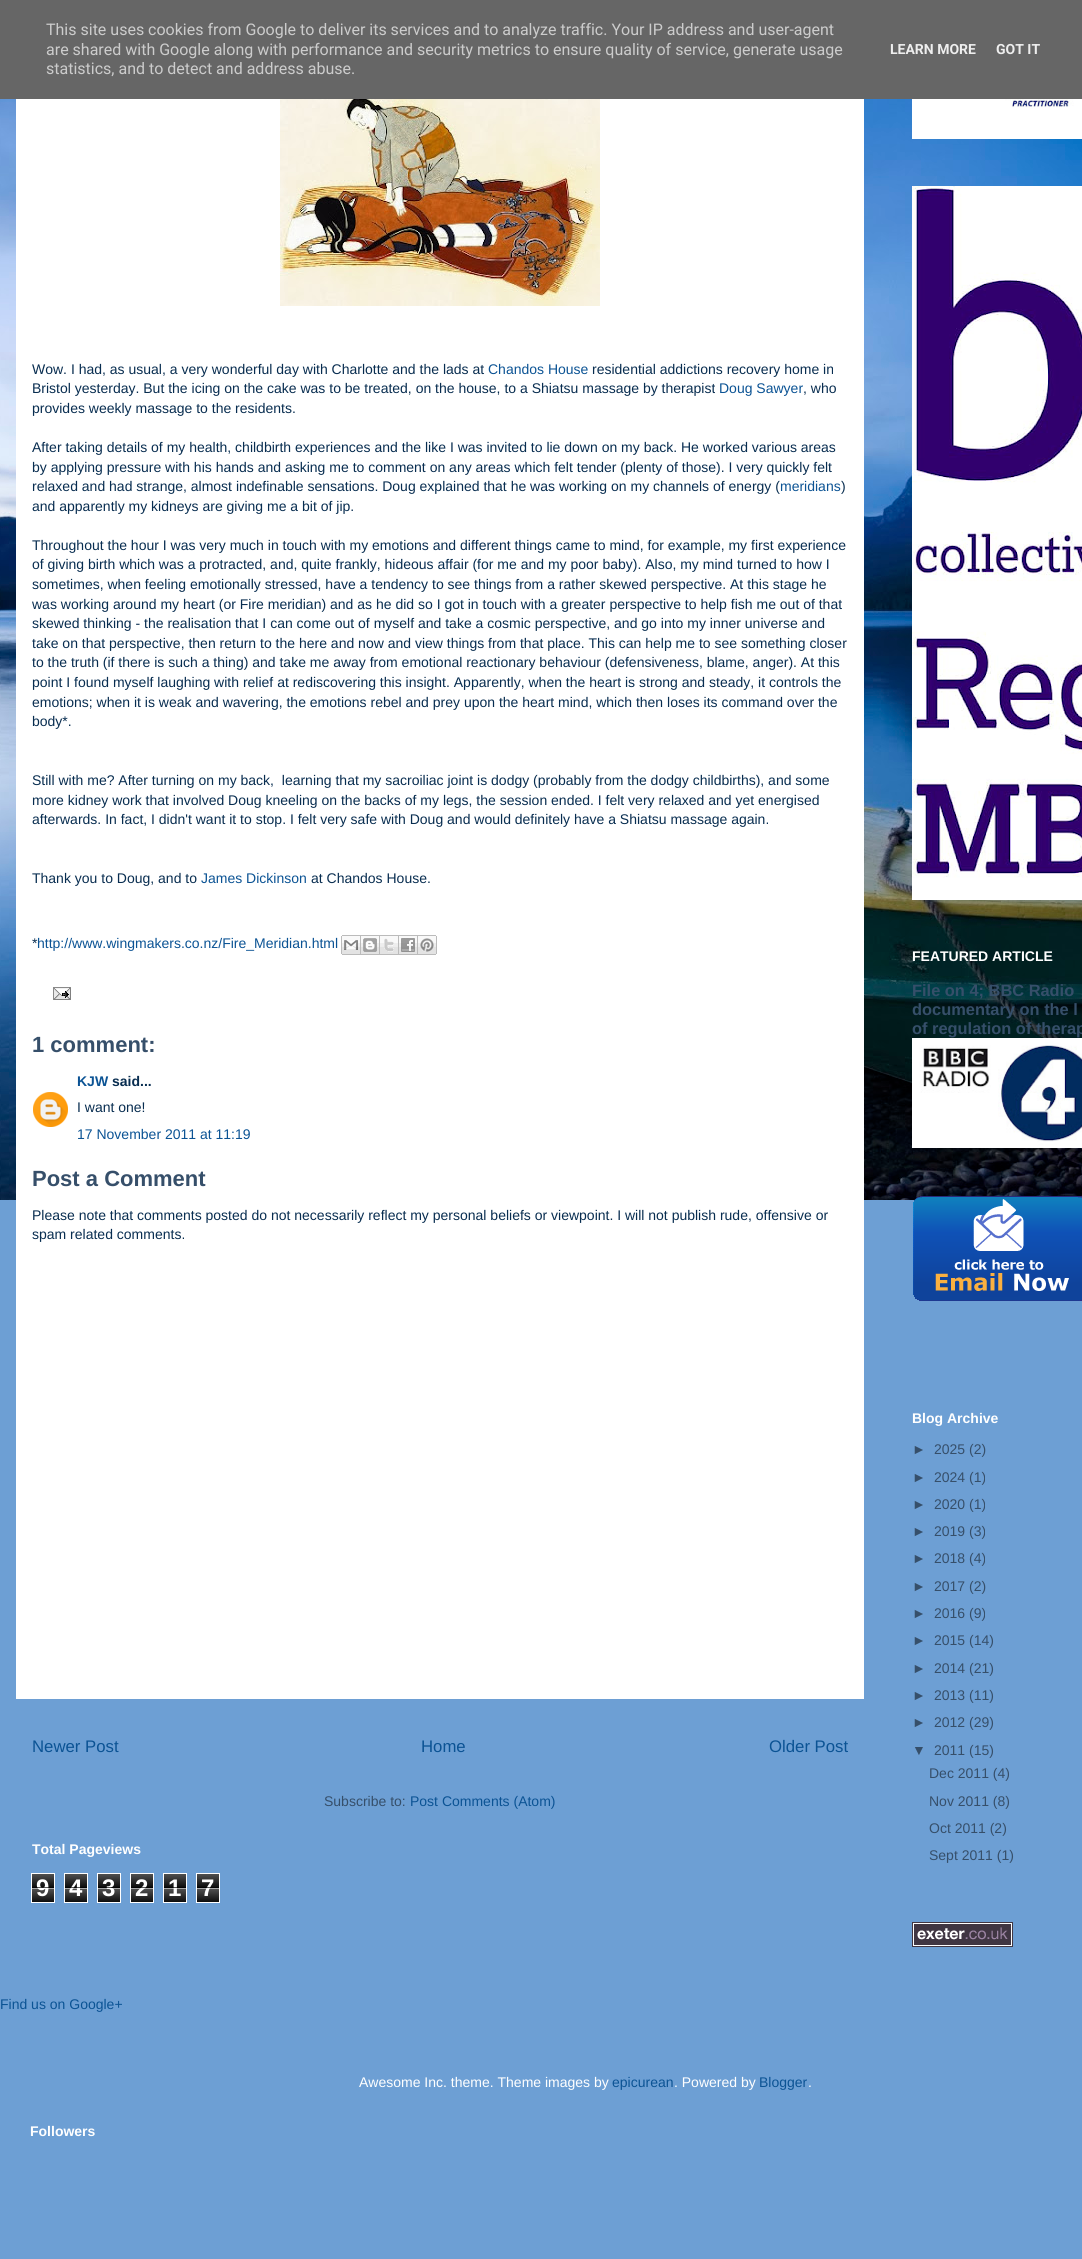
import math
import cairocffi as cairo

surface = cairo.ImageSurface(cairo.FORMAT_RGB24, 1082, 2259)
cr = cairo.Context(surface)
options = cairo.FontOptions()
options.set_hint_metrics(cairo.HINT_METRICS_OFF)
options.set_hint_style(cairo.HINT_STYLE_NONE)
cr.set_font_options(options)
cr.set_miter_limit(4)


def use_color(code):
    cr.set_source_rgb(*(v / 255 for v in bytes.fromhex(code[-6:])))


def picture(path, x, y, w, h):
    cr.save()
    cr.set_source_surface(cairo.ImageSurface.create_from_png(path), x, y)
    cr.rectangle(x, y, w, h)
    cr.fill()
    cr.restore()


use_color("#6d9fd4")
cr.paint()
picture("img1.png", 0, 99, 1082, 1101)
use_color("#666666")
cr.rectangle(0, 0, 1082, 99)
cr.fill()
cr.select_font_face("Roboto")
cr.set_font_size(16)
use_color("#cccccc")
cr.move_to(46, 35)
cr.show_text("This site uses cookies from Google to deliver its services and to analyze traffic. Your IP address and user-agent")
cr.move_to(46, 55)
cr.show_text("are shared with Google along with performance and security metrics to ensure quality of service, generate usage")
cr.move_to(46, 74)
cr.show_text("statistics, and to detect and address abuse.")
cr.select_font_face("Roboto", cairo.FONT_SLANT_NORMAL, cairo.FONT_WEIGHT_BOLD)
cr.set_font_size(14)
use_color("#eeeeee")
cr.move_to(890, 54)
cr.show_text("LEARN MORE")
cr.move_to(996, 54)
cr.show_text("GOT IT")
use_color("#ffffff")
cr.rectangle(16, 99, 848, 1600)
cr.fill()
picture("img2.png", 280, 99, 320, 207)
cr.select_font_face("Liberation Sans")
use_color("#082d50")
cr.move_to(32, 374)
cr.show_text("Wow. I had, as usual, a very wonderful day with Charlotte and the lads at")
use_color("#0b5394")
cr.move_to(488, 374)
cr.show_text("Chandos House")
use_color("#082d50")
cr.move_to(592, 374)
cr.show_text("residential addictions recovery home in")
cr.move_to(32, 393)
cr.show_text("Bristol yesterday. But the icing on the cake was to be treated, on the house, to a Shiatsu massage by therapist")
use_color("#0b5394")
cr.move_to(719, 393)
cr.show_text("Doug Sawyer")
use_color("#082d50")
cr.move_to(803, 393)
cr.show_text(", who")
cr.move_to(32, 413)
cr.show_text("provides weekly massage to the residents.")
cr.move_to(32, 452)
cr.show_text("After taking details of my health, childbirth experiences and the like I was invited to lie down on my back. He worked various areas")
cr.move_to(32, 472)
cr.show_text("by applying pressure with his hands and asking me to comment on any areas which felt tender (plenty of those). I very quickly felt")
cr.move_to(32, 491)
cr.show_text("relaxed and had strange, almost indefinable sensations. Doug explained that he was working on my channels of energy (")
use_color("#0b5394")
cr.move_to(780, 491)
cr.show_text("meridians")
use_color("#082d50")
cr.move_to(841, 491)
cr.show_text(")")
cr.move_to(32, 511)
cr.show_text("and apparently my kidneys are giving me a bit of jip.")
cr.move_to(32, 550)
cr.show_text("Throughout the hour I was very much in touch with my emotions and different things came to mind, for example, my first experience")
cr.move_to(32, 569)
cr.show_text("of giving birth which was a protracted, and, quite frankly, hideous affair (for me and my poor baby). Also, my mind turned to how I")
cr.move_to(32, 589)
cr.show_text("sometimes, when feeling emotionally stressed, have a tendency to see things from a rather skewed perspective. At this stage he")
cr.move_to(32, 609)
cr.show_text("was working around my heart (or Fire meridian) and as he did so I got in touch with a greater perspective to help fish me out of that")
cr.move_to(32, 628)
cr.show_text("skewed thinking - the realisation that I can come out of myself and take a cosmic perspective, and go into my inner universe and")
cr.move_to(32, 648)
cr.show_text("take on that perspective, then return to the here and now and view things from that place. This can help me to see something closer")
cr.move_to(32, 667)
cr.show_text("to the truth (if there is such a thing) and take me away from emotional reactionary behaviour (defensiveness, blame, anger). At this")
cr.move_to(32, 687)
cr.show_text("point I found myself laughing with relief at rediscovering this insight. Apparently, when the heart is strong and steady, it controls the")
cr.move_to(32, 707)
cr.show_text("emotions; when it is weak and wavering, the emotions rebel and prey upon the heart mind, which then loses its command over the")
cr.move_to(32, 726)
cr.show_text("body*.")
cr.move_to(32, 785)
cr.show_text("Still with me? After turning on my back,  learning that my sacroiliac joint is dodgy (probably from the dodgy childbirths), and some")
cr.move_to(32, 805)
cr.show_text("more kidney work that involved Doug kneeling on the backs of my legs, the session ended. I felt very relaxed and yet energised")
cr.move_to(32, 824)
cr.show_text("afterwards. In fact, I didn't want it to stop. I felt very safe with Doug and would definitely have a Shiatsu massage again.")
cr.move_to(32, 883)
cr.show_text("Thank you to Doug, and to")
use_color("#0b5394")
cr.move_to(201, 883)
cr.show_text("James Dickinson")
use_color("#082d50")
cr.move_to(311, 883)
cr.show_text("at Chandos House.")
cr.move_to(32, 948)
cr.show_text("*")
use_color("#0b5394")
cr.move_to(37, 948)
cr.show_text("http://www.wingmakers.co.nz/Fire_Meridian.html")
picture("img3.png", 341, 935, 20, 20)
picture("img4.png", 361, 935, 19, 20)
picture("img5.png", 380, 935, 19, 20)
picture("img6.png", 399, 935, 19, 20)
picture("img7.png", 418, 935, 19, 20)
picture("img8.png", 53, 987, 18, 13)
cr.select_font_face("Liberation Sans", cairo.FONT_SLANT_NORMAL, cairo.FONT_WEIGHT_BOLD)
cr.set_font_size(22)
use_color("#364f6a")
cr.move_to(32, 1052)
cr.show_text("1 comment:")
cr.set_font_size(14)
use_color("#0b5394")
cr.move_to(77, 1086)
cr.show_text("KJW")
use_color("#082d50")
cr.move_to(112, 1086)
cr.show_text("said...")
picture("img9.png", 33, 1092, 35, 35)
cr.select_font_face("Liberation Sans")
cr.move_to(77, 1112)
cr.show_text("I want one!")
use_color("#0b5394")
cr.move_to(77, 1139)
cr.show_text("17 November 2011 at 11:19")
cr.select_font_face("Liberation Sans", cairo.FONT_SLANT_NORMAL, cairo.FONT_WEIGHT_BOLD)
cr.set_font_size(22)
use_color("#364f6a")
cr.move_to(32, 1186)
cr.show_text("Post a Comment")
cr.select_font_face("Liberation Sans")
cr.set_font_size(14)
use_color("#082d50")
cr.move_to(32, 1220)
cr.show_text("Please note that comments posted do not necessarily reflect my personal beliefs or viewpoint. I will not publish rude, offensive or")
cr.move_to(32, 1239)
cr.show_text("spam related comments.")
cr.set_font_size(16.75)
use_color("#0b5394")
cr.move_to(32, 1752)
cr.show_text("Newer Post")
cr.move_to(421, 1752)
cr.show_text("Home")
cr.move_to(769, 1752)
cr.show_text("Older Post")
cr.set_font_size(14)
use_color("#364f6a")
cr.move_to(324, 1806)
cr.show_text("Subscribe to:")
use_color("#0b5394")
cr.move_to(410, 1806)
cr.show_text("Post Comments (Atom)")
cr.select_font_face("Liberation Sans", cairo.FONT_SLANT_NORMAL, cairo.FONT_WEIGHT_BOLD)
use_color("#ffffff")
cr.move_to(32, 1854)
cr.show_text("Total Pageviews")
picture("img10.png", 32, 1874, 22, 28)
cr.rectangle(31.5, 1873.5, 23, 29)
cr.set_line_width(1)
cr.stroke()
cr.set_font_size(24)
cr.move_to(36, 1896)
cr.show_text("9")
cr.set_source_rgba(0, 0, 0, 0.65)
cr.rectangle(32, 1887, 22, 1)
cr.fill()
cr.set_source_rgba(1, 1, 1, 0.65)
cr.rectangle(32, 1888, 22, 1)
cr.fill()
picture("img10.png", 65, 1874, 22, 28)
cr.rectangle(64.5, 1873.5, 23, 29)
use_color("#ffffff")
cr.stroke()
cr.move_to(69, 1896)
cr.show_text("4")
cr.set_source_rgba(0, 0, 0, 0.65)
cr.rectangle(65, 1887, 22, 1)
cr.fill()
cr.set_source_rgba(1, 1, 1, 0.65)
cr.rectangle(65, 1888, 22, 1)
cr.fill()
picture("img10.png", 98, 1874, 22, 28)
cr.rectangle(97.5, 1873.5, 23, 29)
use_color("#ffffff")
cr.stroke()
cr.move_to(102, 1896)
cr.show_text("3")
cr.set_source_rgba(0, 0, 0, 0.65)
cr.rectangle(98, 1887, 22, 1)
cr.fill()
cr.set_source_rgba(1, 1, 1, 0.65)
cr.rectangle(98, 1888, 22, 1)
cr.fill()
picture("img10.png", 131, 1874, 22, 28)
cr.rectangle(130.5, 1873.5, 23, 29)
use_color("#ffffff")
cr.stroke()
cr.move_to(135, 1896)
cr.show_text("2")
cr.set_source_rgba(0, 0, 0, 0.65)
cr.rectangle(131, 1887, 22, 1)
cr.fill()
cr.set_source_rgba(1, 1, 1, 0.65)
cr.rectangle(131, 1888, 22, 1)
cr.fill()
picture("img10.png", 164, 1874, 22, 28)
cr.rectangle(163.5, 1873.5, 23, 29)
use_color("#ffffff")
cr.stroke()
cr.move_to(168, 1896)
cr.show_text("1")
cr.set_source_rgba(0, 0, 0, 0.65)
cr.rectangle(164, 1887, 22, 1)
cr.fill()
cr.set_source_rgba(1, 1, 1, 0.65)
cr.rectangle(164, 1888, 22, 1)
cr.fill()
picture("img10.png", 197, 1874, 22, 28)
cr.rectangle(196.5, 1873.5, 23, 29)
use_color("#ffffff")
cr.stroke()
cr.move_to(201, 1896)
cr.show_text("7")
cr.set_source_rgba(0, 0, 0, 0.65)
cr.rectangle(197, 1887, 22, 1)
cr.fill()
cr.set_source_rgba(1, 1, 1, 0.65)
cr.rectangle(197, 1888, 22, 1)
cr.fill()
picture("img11.png", 912, 99, 170, 40)
picture("img12.png", 912, 186, 170, 714)
cr.set_font_size(14)
use_color("#ffffff")
cr.move_to(912, 961)
cr.show_text("FEATURED ARTICLE")
cr.set_font_size(16.4)
use_color("#364f6a")
cr.move_to(912, 996)
cr.show_text("File on 4; BBC Radio")
cr.move_to(912, 1015)
cr.show_text("documentary on the l")
cr.move_to(912, 1034)
cr.show_text("of regulation of therap")
picture("img13.png", 912, 1038, 170, 110)
picture("img14.png", 913, 1196, 169, 105)
cr.set_font_size(14)
use_color("#ffffff")
cr.move_to(912, 1423)
cr.show_text("Blog Archive")
cr.select_font_face("Liberation Sans")
use_color("#364f6a")
cr.move_to(912, 1454)
cr.show_text("►")
cr.move_to(934, 1454)
cr.show_text("2025 (2)")
cr.move_to(912, 1482)
cr.show_text("►")
cr.move_to(934, 1482)
cr.show_text("2024 (1)")
cr.move_to(912, 1509)
cr.show_text("►")
cr.move_to(934, 1509)
cr.show_text("2020 (1)")
cr.move_to(912, 1536)
cr.show_text("►")
cr.move_to(934, 1536)
cr.show_text("2019 (3)")
cr.move_to(912, 1563)
cr.show_text("►")
cr.move_to(934, 1563)
cr.show_text("2018 (4)")
cr.move_to(912, 1591)
cr.show_text("►")
cr.move_to(934, 1591)
cr.show_text("2017 (2)")
cr.move_to(912, 1618)
cr.show_text("►")
cr.move_to(934, 1618)
cr.show_text("2016 (9)")
cr.move_to(912, 1645)
cr.show_text("►")
cr.move_to(934, 1645)
cr.show_text("2015 (14)")
cr.move_to(912, 1673)
cr.show_text("►")
cr.move_to(934, 1673)
cr.show_text("2014 (21)")
cr.move_to(912, 1700)
cr.show_text("►")
cr.move_to(934, 1700)
cr.show_text("2013 (11)")
cr.move_to(912, 1727)
cr.show_text("►")
cr.move_to(934, 1727)
cr.show_text("2012 (29)")
cr.move_to(912, 1755)
cr.show_text("▼")
cr.move_to(934, 1755)
cr.show_text("2011 (15)")
cr.move_to(929, 1778)
cr.show_text("Dec 2011 (4)")
cr.move_to(929, 1806)
cr.show_text("Nov 2011 (8)")
cr.move_to(929, 1833)
cr.show_text("Oct 2011 (2)")
cr.move_to(929, 1860)
cr.show_text("Sept 2011 (1)")
picture("img15.png", 912, 1922, 101, 25)
use_color("#0b5394")
cr.move_to(0, 2009)
cr.show_text("Find us on Google+")
use_color("#ffffff")
cr.move_to(359, 2087)
cr.show_text("Awesome Inc. theme. Theme images by")
use_color("#0b5394")
cr.move_to(612, 2087)
cr.show_text("epicurean")
use_color("#ffffff")
cr.move_to(674, 2087)
cr.show_text(". Powered by")
use_color("#0b5394")
cr.move_to(759, 2087)
cr.show_text("Blogger")
use_color("#ffffff")
cr.move_to(808, 2087)
cr.show_text(".")
cr.select_font_face("Liberation Sans", cairo.FONT_SLANT_NORMAL, cairo.FONT_WEIGHT_BOLD)
cr.move_to(30, 2136)
cr.show_text("Followers")
surface.write_to_png("result.png")
